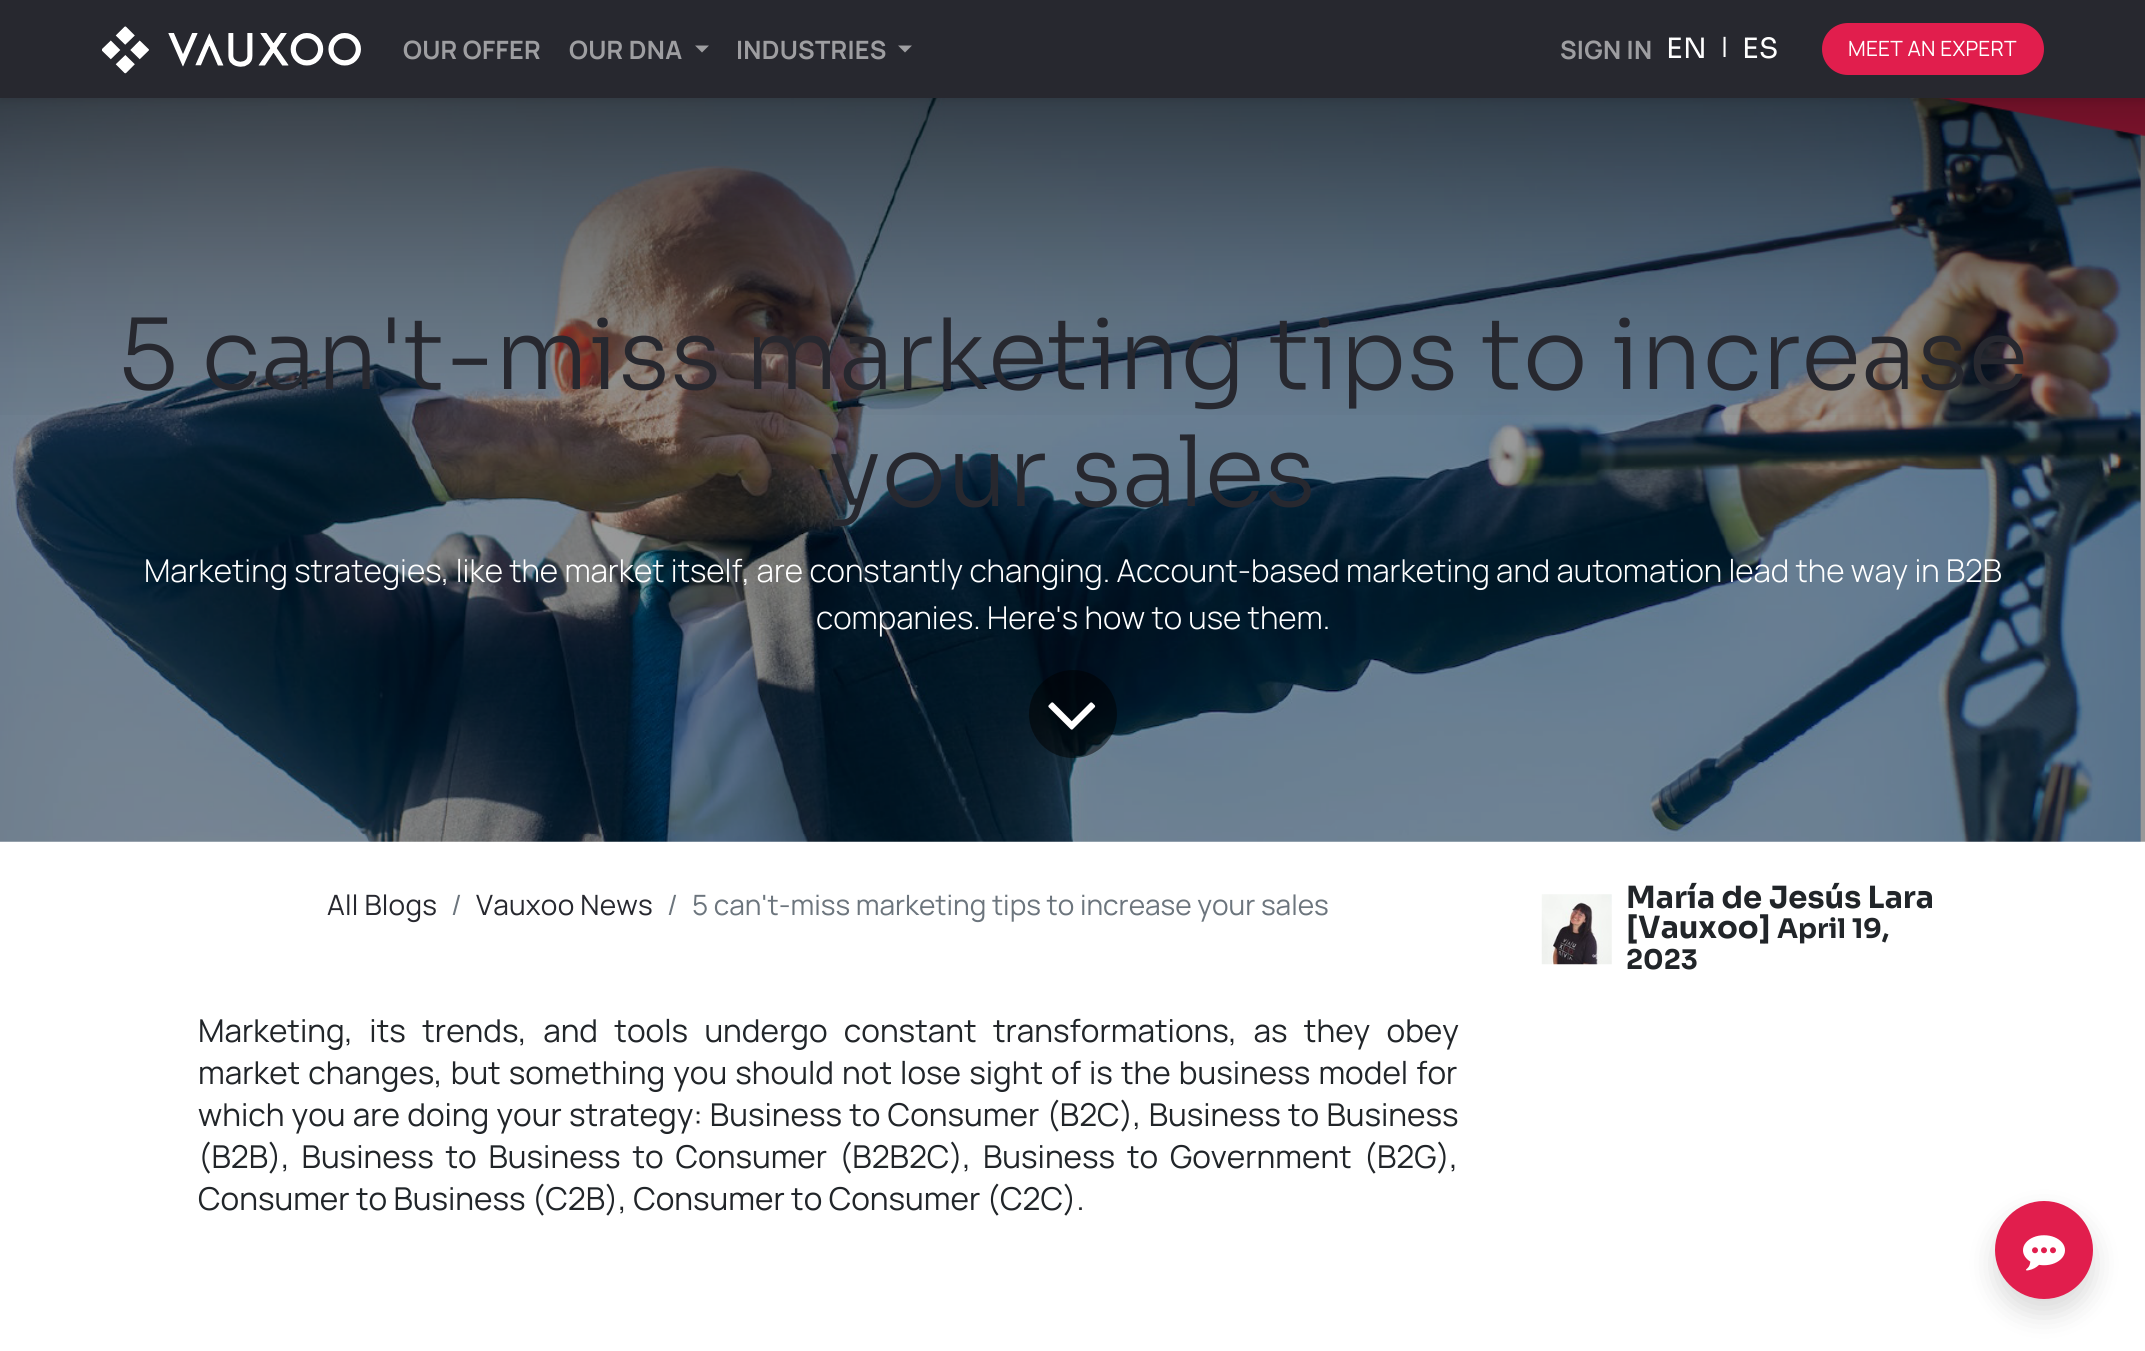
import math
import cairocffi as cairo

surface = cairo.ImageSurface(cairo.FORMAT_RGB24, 2145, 1351)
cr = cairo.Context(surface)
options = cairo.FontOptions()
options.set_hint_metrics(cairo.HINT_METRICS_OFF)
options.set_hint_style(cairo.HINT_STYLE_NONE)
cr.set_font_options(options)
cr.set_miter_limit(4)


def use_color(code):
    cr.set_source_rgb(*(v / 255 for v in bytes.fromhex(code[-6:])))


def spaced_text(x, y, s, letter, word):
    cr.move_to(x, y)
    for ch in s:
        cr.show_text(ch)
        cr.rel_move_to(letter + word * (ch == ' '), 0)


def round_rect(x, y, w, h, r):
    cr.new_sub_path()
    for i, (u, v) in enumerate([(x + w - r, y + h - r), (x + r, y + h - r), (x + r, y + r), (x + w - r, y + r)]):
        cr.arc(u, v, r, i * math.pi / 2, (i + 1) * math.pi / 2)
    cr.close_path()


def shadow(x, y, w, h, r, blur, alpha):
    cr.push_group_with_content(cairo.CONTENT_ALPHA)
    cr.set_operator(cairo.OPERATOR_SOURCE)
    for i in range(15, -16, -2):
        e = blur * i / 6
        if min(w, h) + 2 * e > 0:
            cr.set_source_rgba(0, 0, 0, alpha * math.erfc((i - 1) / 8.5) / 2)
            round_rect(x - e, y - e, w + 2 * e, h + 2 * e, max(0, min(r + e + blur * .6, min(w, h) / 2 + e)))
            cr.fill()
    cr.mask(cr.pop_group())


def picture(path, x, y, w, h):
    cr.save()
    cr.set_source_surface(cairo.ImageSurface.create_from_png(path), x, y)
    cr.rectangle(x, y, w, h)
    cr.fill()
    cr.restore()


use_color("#ffffff")
cr.paint()
picture("img2.png", 0, 98, 2145, 744)
gradient = cairo.LinearGradient(1073, 98, 1073, 469)
gradient.add_color_stop_rgba(0, 0, 0, 0, 0.5)
gradient.add_color_stop_rgba(0.19, 0, 0, 0, 0.37)
gradient.add_color_stop_rgba(0.34, 0, 0, 0, 0.27)
gradient.add_color_stop_rgba(0.47, 0, 0, 0, 0.19)
gradient.add_color_stop_rgba(0.56, 0, 0, 0, 0.14)
gradient.add_color_stop_rgba(0.65, 0, 0, 0, 0.1)
gradient.add_color_stop_rgba(0.73, 0, 0, 0, 0.06)
gradient.add_color_stop_rgba(0.8, 0, 0, 0, 0.04)
gradient.add_color_stop_rgba(0.86, 0, 0, 0, 0.02)
gradient.add_color_stop_rgba(0.91, 0, 0, 0, 0.01)
gradient.add_color_stop_rgba(0.95, 0, 0, 0, 0)
gradient.add_color_stop_rgba(0.98, 0, 0, 0, 0)
gradient.add_color_stop_rgba(1, 0, 0, 0, 0)
cr.set_source(gradient)
cr.rectangle(0, 98, 2145, 317)
cr.fill()
use_color("#000000")
shadow(0, 4, 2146, 98, 0, 3.5, 0.07)
use_color("#27282f")
cr.rectangle(0, 0, 2145, 98)
cr.fill()
picture("img1.png", 102, 26, 259, 48)
cr.select_font_face("Manrope", cairo.FONT_SLANT_NORMAL, cairo.FONT_WEIGHT_BOLD)
cr.set_font_size(25.25)
use_color("#9e9ea1")
spaced_text(403, 59, "OUR OFFER", 0.25, 0)
spaced_text(569, 59, "OUR DNA", 0.25, 0)
cr.new_path()
cr.move_to(695, 45.5)
cr.line_to(709, 45.5)
cr.line_to(702, 52.5)
cr.close_path()
cr.fill()
spaced_text(736, 59, "INDUSTRIES", 0.25, 0)
cr.new_path()
cr.move_to(898, 45.5)
cr.line_to(912, 45.5)
cr.line_to(905, 52.5)
cr.close_path()
cr.fill()
spaced_text(1560, 59, "SIGN IN", 0.25, 0)
cr.select_font_face("Sora")
cr.set_font_size(28)
use_color("#ffffff")
spaced_text(1666, 58, "EN", 0.25, 0)
cr.select_font_face("Manrope")
cr.move_to(1721, 57)
cr.show_text("|")
cr.select_font_face("Sora")
spaced_text(1742, 58, "ES", 0.25, 0)
use_color("#e11e4d")
round_rect(1823, 24, 220, 50, 25)
cr.fill_preserve()
cr.stroke()
cr.select_font_face("Manrope")
cr.set_font_size(21)
use_color("#ffffff")
spaced_text(1848, 56, "MEET AN EXPERT", 0.25, 0)
cr.select_font_face("Sora Light")
cr.set_font_size(98)
use_color("#27282f")
cr.move_to(118, 389)
cr.show_text("5 can't-miss marketing tips to increase")
cr.move_to(829, 506)
cr.show_text("your sales")
cr.select_font_face("Manrope Light")
cr.set_font_size(31.5)
use_color("#ffffff")
cr.move_to(144, 582)
cr.show_text("Marketing strategies, like the market itself, are constantly changing. Account-based marketing and automation lead the way in B2B")
cr.move_to(816, 629)
cr.show_text("companies. Here's how to use them.")
cr.set_source_rgba(0, 0, 0, 0.5)
cr.new_path()
cr.arc(1073, 714, 44, 0, 2 * math.pi)
cr.fill()
picture("img3.png", 1048, 702, 48, 28)
cr.select_font_face("Manrope")
cr.set_font_size(28)
use_color("#27282f")
spaced_text(327, 915, "All Blogs", 0.25, 0)
use_color("#6c757d")
cr.move_to(451, 915)
cr.show_text("/")
use_color("#27282f")
spaced_text(476, 915, "Vauxoo News", 0.25, 0)
use_color("#6c757d")
cr.move_to(667, 915)
cr.show_text("/")
cr.move_to(692, 915)
cr.show_text("5 can't-miss marketing tips to increase your sales")
cr.set_font_size(31.5)
use_color("#212529")
spaced_text(198, 1042, "Marketing, its trends, and tools undergo constant transformations, as they obey", 0, 10)
spaced_text(198, 1084, "market changes, but something you should not lose sight of is the business model for", 0, 1.8)
spaced_text(198, 1126, "which you are doing your strategy: Business to Consumer (B2C), Business to Business", 0, 0.9)
spaced_text(198, 1168, "(B2B), Business to Business to Consumer (B2B2C), Business to Government (B2G),", 0, 5.5)
cr.move_to(198, 1210)
cr.show_text("Consumer to Business (C2B), Consumer to Consumer (C2C).")
picture("img4.png", 1541, 894, 71, 71)
cr.select_font_face("Sora", cairo.FONT_SLANT_NORMAL, cairo.FONT_WEIGHT_BOLD)
cr.set_font_size(30.6)
cr.move_to(1626, 908)
cr.show_text("María de Jesús Lara")
cr.move_to(1626, 938)
cr.show_text("[Vauxoo]")
cr.set_font_size(27)
cr.move_to(1777, 938)
cr.show_text("April 19,")
cr.move_to(1626, 969)
cr.show_text("2023")
use_color("#000000")
shadow(1995, 1215, 98, 98, 49, 14, 0.15)
use_color("#e11e4d")
cr.arc(2044, 1250, 49, 0, 2 * math.pi)
cr.fill()
picture("img5.png", 2023, 1235, 42, 36)
surface.write_to_png("result.png")
